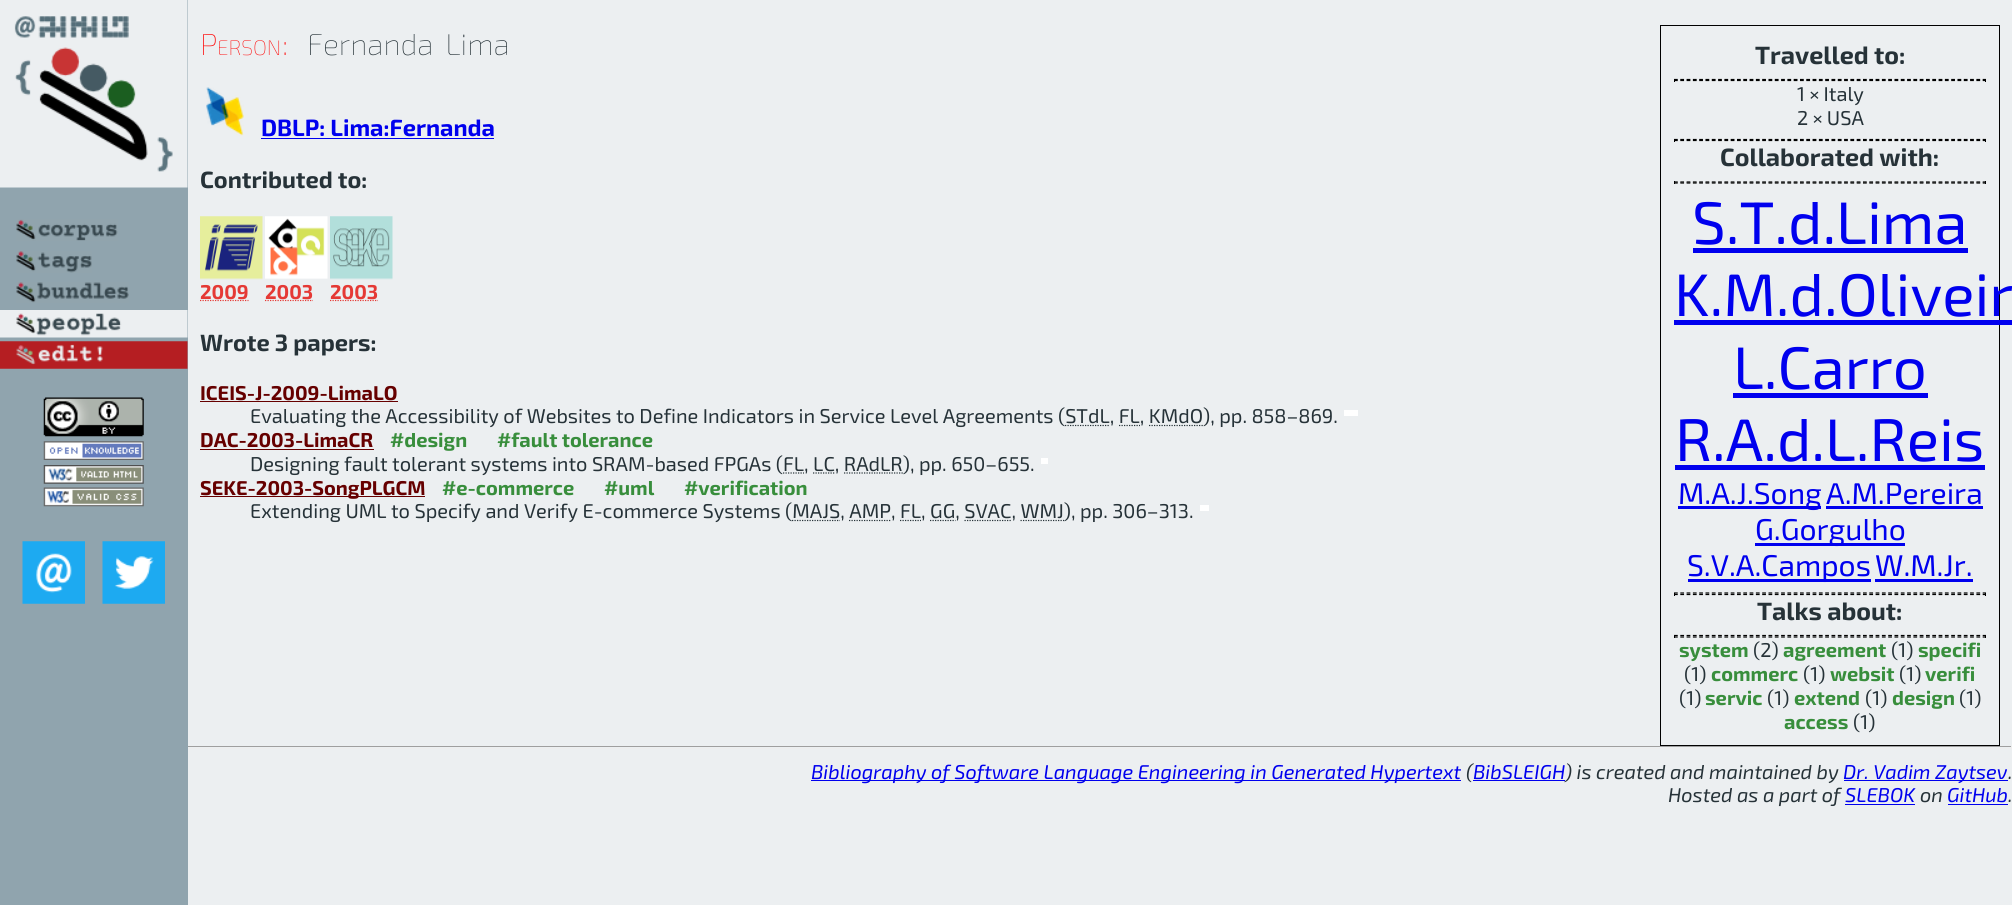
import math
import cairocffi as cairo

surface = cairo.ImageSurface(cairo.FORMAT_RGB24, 2012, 905)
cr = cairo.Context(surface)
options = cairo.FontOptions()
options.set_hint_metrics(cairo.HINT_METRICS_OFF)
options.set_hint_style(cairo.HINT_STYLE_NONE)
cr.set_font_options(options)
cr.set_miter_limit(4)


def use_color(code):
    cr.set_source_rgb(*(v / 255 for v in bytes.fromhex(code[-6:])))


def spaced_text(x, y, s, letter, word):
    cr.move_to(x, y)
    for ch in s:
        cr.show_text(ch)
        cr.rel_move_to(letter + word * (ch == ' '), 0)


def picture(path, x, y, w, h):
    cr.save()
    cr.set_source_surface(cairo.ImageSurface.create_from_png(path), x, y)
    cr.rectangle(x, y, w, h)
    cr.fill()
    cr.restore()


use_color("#eceff1")
cr.paint()
use_color("#90a4ae")
cr.rectangle(0, 0, 188, 905)
cr.fill()
picture("img1.png", 0, 0, 188, 188)
picture("img2.png", 16, 219, 102, 22)
picture("img3.png", 16, 251, 76, 22)
picture("img4.png", 16, 282, 113, 21)
picture("img5.png", 0, 310, 188, 28)
picture("img6.png", 0, 341, 188, 28)
picture("img7.png", 43, 397, 101, 40)
picture("img8.png", 43, 441, 101, 19)
picture("img9.png", 43, 465, 101, 19)
picture("img10.png", 43, 487, 101, 20)
picture("img11.png", 22, 541, 63, 63)
picture("img12.png", 102, 541, 63, 63)
cr.select_font_face("Exo 2 Thin")
cr.set_font_size(30)
use_color("#ff0000")
cr.move_to(200, 55)
cr.show_text("P")
cr.set_font_size(21)
cr.move_to(217, 55)
cr.show_text("ERSON")
cr.set_font_size(30)
cr.move_to(282, 55)
cr.show_text(":")
use_color("#263238")
spaced_text(307, 55, "Fernanda Lima", 0, 5)
cr.rectangle(1660.5, 25.5, 339, 720)
use_color("#000000")
cr.set_line_width(1)
cr.stroke()
cr.select_font_face("Exo 2", cairo.FONT_SLANT_NORMAL, cairo.FONT_WEIGHT_BOLD)
cr.set_font_size(25)
use_color("#263238")
cr.move_to(1755, 64)
cr.show_text("Travelled to:")
cr.new_path()
cr.move_to(1674, 79.5)
cr.line_to(1986, 79.5)
use_color("#000000")
cr.set_line_width(1.2)
cr.set_dash([3.75, 2.55])
cr.stroke()
cr.rectangle(1985, 79, 1, 3)
cr.fill()
cr.new_path()
cr.move_to(1674, 80.5)
cr.line_to(1986, 80.5)
cr.stroke()
cr.rectangle(1674, 79, 1, 3)
cr.fill()
cr.select_font_face("Exo 2")
cr.set_font_size(20)
use_color("#263238")
cr.move_to(1797, 101)
cr.show_text("1 × Italy")
cr.move_to(1797, 125)
cr.show_text("2 × USA")
cr.new_path()
cr.move_to(1674, 139.5)
cr.line_to(1986, 139.5)
use_color("#000000")
cr.stroke()
cr.rectangle(1985, 139, 1, 3)
cr.fill()
cr.new_path()
cr.move_to(1674, 140.5)
cr.line_to(1986, 140.5)
cr.stroke()
cr.rectangle(1674, 139, 1, 3)
cr.fill()
cr.select_font_face("Exo 2", cairo.FONT_SLANT_NORMAL, cairo.FONT_WEIGHT_BOLD)
cr.set_font_size(25)
use_color("#263238")
cr.move_to(1720, 166)
cr.show_text("Collaborated with:")
cr.new_path()
cr.move_to(1674, 182)
cr.line_to(1986, 182)
use_color("#000000")
cr.stroke()
cr.rectangle(1985, 181, 1, 3)
cr.fill()
cr.new_path()
cr.move_to(1674, 183)
cr.line_to(1986, 183)
cr.stroke()
cr.rectangle(1674, 181, 1, 3)
cr.fill()
cr.select_font_face("Exo 2")
cr.set_font_size(60)
use_color("#0000ee")
cr.move_to(1692, 244)
cr.show_text("S.T.d.Lima")
cr.rectangle(1693, 248, 275, 5)
cr.fill()
cr.move_to(1674, 316)
cr.show_text("K.M.d.Oliveir")
cr.rectangle(1674, 320, 338, 5)
cr.fill()
cr.move_to(1733, 389)
cr.show_text("L.Carro")
cr.rectangle(1733, 393, 195, 5)
cr.fill()
cr.move_to(1675, 461)
cr.show_text("R.A.d.L.Reis")
cr.rectangle(1675, 465, 310, 5)
cr.fill()
cr.rectangle(1678, 506, 143, 3)
cr.fill()
cr.set_font_size(30)
cr.move_to(1678, 504)
cr.show_text("M.A.J.Song")
cr.move_to(1826, 504)
cr.show_text("A.M.Pereira")
cr.rectangle(1826, 506, 157, 3)
cr.fill()
cr.rectangle(1755, 543, 150, 3)
cr.fill()
cr.move_to(1755, 540)
cr.show_text("G.Gorgulho")
cr.rectangle(1688, 579, 183, 3)
cr.fill()
cr.move_to(1687, 576)
cr.show_text("S.V.A.Campos")
cr.move_to(1875, 576)
cr.show_text("W.M.Jr.")
cr.rectangle(1875, 579, 98, 3)
cr.fill()
cr.new_path()
cr.move_to(1674, 593)
cr.line_to(1986, 593)
use_color("#000000")
cr.stroke()
cr.rectangle(1985, 593, 1, 3)
cr.fill()
cr.new_path()
cr.move_to(1674, 594.5)
cr.line_to(1986, 594.5)
cr.stroke()
cr.rectangle(1674, 593, 1, 3)
cr.fill()
cr.select_font_face("Exo 2", cairo.FONT_SLANT_NORMAL, cairo.FONT_WEIGHT_BOLD)
cr.set_font_size(25)
use_color("#263238")
cr.move_to(1757, 620)
cr.show_text("Talks about:")
cr.new_path()
cr.move_to(1674, 635.5)
cr.line_to(1986, 635.5)
use_color("#000000")
cr.stroke()
cr.rectangle(1985, 635, 1, 3)
cr.fill()
cr.new_path()
cr.move_to(1674, 637)
cr.line_to(1986, 637)
cr.stroke()
cr.rectangle(1674, 635, 1, 3)
cr.fill()
cr.set_font_size(20)
use_color("#388e3c")
cr.move_to(1679, 657)
cr.show_text("system")
cr.select_font_face("Exo 2")
use_color("#263238")
cr.move_to(1753, 657)
cr.show_text("(2)")
cr.select_font_face("Exo 2", cairo.FONT_SLANT_NORMAL, cairo.FONT_WEIGHT_BOLD)
use_color("#388e3c")
cr.move_to(1783, 657)
cr.show_text("agreement")
cr.select_font_face("Exo 2")
use_color("#263238")
cr.move_to(1891, 657)
cr.show_text("(1)")
cr.select_font_face("Exo 2", cairo.FONT_SLANT_NORMAL, cairo.FONT_WEIGHT_BOLD)
use_color("#388e3c")
cr.move_to(1918, 657)
cr.show_text("specifi")
cr.select_font_face("Exo 2")
use_color("#263238")
cr.move_to(1684, 681)
cr.show_text("(1)")
cr.select_font_face("Exo 2", cairo.FONT_SLANT_NORMAL, cairo.FONT_WEIGHT_BOLD)
use_color("#388e3c")
cr.move_to(1711, 681)
cr.show_text("commerc")
cr.select_font_face("Exo 2")
use_color("#263238")
cr.move_to(1803, 681)
cr.show_text("(1)")
cr.select_font_face("Exo 2", cairo.FONT_SLANT_NORMAL, cairo.FONT_WEIGHT_BOLD)
use_color("#388e3c")
cr.move_to(1830, 681)
cr.show_text("websit")
cr.select_font_face("Exo 2")
use_color("#263238")
cr.move_to(1899, 681)
cr.show_text("(1)")
cr.select_font_face("Exo 2", cairo.FONT_SLANT_NORMAL, cairo.FONT_WEIGHT_BOLD)
use_color("#388e3c")
cr.move_to(1925, 681)
cr.show_text("verifi")
cr.select_font_face("Exo 2")
use_color("#263238")
cr.move_to(1679, 705)
cr.show_text("(1)")
cr.select_font_face("Exo 2", cairo.FONT_SLANT_NORMAL, cairo.FONT_WEIGHT_BOLD)
use_color("#388e3c")
cr.move_to(1705, 705)
cr.show_text("servic")
cr.select_font_face("Exo 2")
use_color("#263238")
cr.move_to(1767, 705)
cr.show_text("(1)")
cr.select_font_face("Exo 2", cairo.FONT_SLANT_NORMAL, cairo.FONT_WEIGHT_BOLD)
use_color("#388e3c")
cr.move_to(1794, 705)
cr.show_text("extend")
cr.select_font_face("Exo 2")
use_color("#263238")
cr.move_to(1865, 705)
cr.show_text("(1)")
cr.select_font_face("Exo 2", cairo.FONT_SLANT_NORMAL, cairo.FONT_WEIGHT_BOLD)
use_color("#388e3c")
cr.move_to(1892, 705)
cr.show_text("design")
cr.select_font_face("Exo 2")
use_color("#263238")
cr.move_to(1959, 705)
cr.show_text("(1)")
cr.select_font_face("Exo 2", cairo.FONT_SLANT_NORMAL, cairo.FONT_WEIGHT_BOLD)
use_color("#388e3c")
cr.move_to(1784, 729)
cr.show_text("access")
cr.select_font_face("Exo 2")
use_color("#263238")
cr.move_to(1853, 729)
cr.show_text("(1)")
picture("img13.png", 206, 87, 38, 49)
cr.select_font_face("Exo 2", cairo.FONT_SLANT_NORMAL, cairo.FONT_WEIGHT_BOLD)
cr.set_font_size(23.5)
use_color("#0000ee")
cr.move_to(261, 136)
cr.show_text("DBLP: Lima:Fernanda")
cr.rectangle(261, 138, 233, 1)
cr.fill()
use_color("#263238")
cr.move_to(200, 188)
cr.show_text("Contributed to:")
picture("img14.png", 200, 216, 63, 64)
cr.new_path()
cr.move_to(200, 300.5)
cr.line_to(248.5, 300.5)
use_color("#e53935")
cr.set_dash([1.25, 1.25])
cr.stroke()
cr.set_font_size(20)
cr.move_to(200, 299)
cr.show_text("2009")
picture("img15.png", 265, 216, 63, 63)
cr.new_path()
cr.move_to(265, 300.5)
cr.line_to(313, 300.5)
cr.stroke()
cr.move_to(265, 299)
cr.show_text("2003")
picture("img16.png", 330, 216, 63, 64)
cr.new_path()
cr.move_to(330, 300.5)
cr.line_to(378, 300.5)
cr.stroke()
cr.move_to(330, 299)
cr.show_text("2003")
cr.set_font_size(23.5)
use_color("#263238")
cr.move_to(200, 351)
cr.show_text("Wrote 3 papers:")
cr.set_font_size(20)
use_color("#660000")
cr.move_to(200, 400)
cr.show_text("ICEIS-J-2009-LimaLO")
cr.rectangle(200, 401, 198, 1)
cr.fill()
cr.select_font_face("Exo 2")
use_color("#263238")
cr.move_to(250, 423)
cr.show_text("Evaluating the Accessibility of Websites to Define Indicators in Service Level Agreements (STdL, FL, KMdO), pp. 858–869.")
cr.new_path()
cr.move_to(1065, 425.5)
cr.line_to(1109.5, 425.5)
cr.stroke()
cr.new_path()
cr.move_to(1119, 425.5)
cr.line_to(1140, 425.5)
cr.stroke()
cr.new_path()
cr.move_to(1149, 425.5)
cr.line_to(1203, 425.5)
cr.stroke()
use_color("#ffffff")
cr.rectangle(1344, 410, 14, 6)
cr.fill()
cr.select_font_face("Exo 2", cairo.FONT_SLANT_NORMAL, cairo.FONT_WEIGHT_BOLD)
use_color("#660000")
cr.move_to(200, 447)
cr.show_text("DAC-2003-LimaCR")
cr.rectangle(200, 449, 174, 1)
cr.fill()
use_color("#388e3c")
cr.move_to(390, 447)
cr.show_text("#design")
cr.move_to(497, 447)
cr.show_text("#fault tolerance")
cr.select_font_face("Exo 2")
use_color("#263238")
cr.move_to(250, 471)
cr.show_text("Designing fault tolerant systems into SRAM-based FPGAs (FL, LC, RAdLR), pp. 650–655.")
cr.new_path()
cr.move_to(783, 473)
cr.line_to(804, 473)
cr.move_to(813, 473)
cr.line_to(835, 473)
cr.stroke()
cr.new_path()
cr.move_to(844, 473)
cr.line_to(903, 473)
cr.stroke()
use_color("#ffffff")
cr.rectangle(1041, 458, 7, 6)
cr.fill()
use_color("#660000")
cr.rectangle(200, 496, 225, 1)
cr.fill()
cr.select_font_face("Exo 2", cairo.FONT_SLANT_NORMAL, cairo.FONT_WEIGHT_BOLD)
cr.move_to(200, 495)
cr.show_text("SEKE-2003-SongPLGCM")
use_color("#388e3c")
cr.move_to(442, 495)
cr.show_text("#e-commerce")
cr.move_to(604, 495)
cr.show_text("#uml")
cr.move_to(684, 495)
cr.show_text("#verification")
cr.select_font_face("Exo 2")
use_color("#263238")
cr.move_to(250, 518)
cr.show_text("Extending UML to Specify and Verify E-commerce Systems (MAJS, AMP, FL, GG, SVAC, WMJ), pp. 306–313.")
cr.new_path()
cr.move_to(792, 520.5)
cr.line_to(840, 520.5)
cr.stroke()
cr.new_path()
cr.move_to(849, 520.5)
cr.line_to(891, 520.5)
cr.stroke()
cr.new_path()
cr.move_to(900, 520.5)
cr.line_to(921, 520.5)
cr.move_to(930, 520.5)
cr.line_to(955.5, 520.5)
cr.stroke()
cr.new_path()
cr.move_to(964.5, 520.5)
cr.line_to(1011.5, 520.5)
cr.stroke()
cr.new_path()
cr.move_to(1020.5, 520.5)
cr.line_to(1064, 520.5)
cr.stroke()
use_color("#ffffff")
cr.rectangle(1200, 505, 9, 6)
cr.fill()
use_color("#9f9f9f")
cr.rectangle(188, 746, 1824, 1)
cr.fill()
use_color("#eeeeee")
cr.rectangle(2011, 746, 1, 3)
cr.fill()
cr.rectangle(188, 748, 1824, 1)
cr.fill()
use_color("#0000ee")
cr.rectangle(811, 780, 650, 1)
cr.fill()
cr.select_font_face("Exo 2", cairo.FONT_SLANT_ITALIC)
cr.move_to(811, 779)
cr.show_text("Bibliography of Software Language Engineering in Generated Hypertext")
use_color("#263238")
cr.move_to(1466, 779)
cr.show_text("(")
use_color("#0000ee")
cr.move_to(1473, 779)
cr.show_text("BibSLEIGH")
cr.rectangle(1473, 780, 92, 1)
cr.fill()
use_color("#263238")
cr.move_to(1565, 779)
cr.show_text(") is created and maintained by")
use_color("#0000ee")
cr.rectangle(1844, 780, 164, 1)
cr.fill()
cr.move_to(1843, 779)
cr.show_text("Dr. Vadim Zaytsev")
use_color("#263238")
cr.move_to(2008, 779)
cr.show_text(".")
cr.move_to(1668, 802)
cr.show_text("Hosted as a part of")
use_color("#0000ee")
cr.rectangle(1845, 804, 70, 1)
cr.fill()
cr.move_to(1845, 802)
cr.show_text("SLEBOK")
use_color("#263238")
cr.move_to(1920, 802)
cr.show_text("on")
use_color("#0000ee")
cr.move_to(1947, 802)
cr.show_text("GitHub")
use_color("#263238")
cr.move_to(2008, 802)
cr.show_text(".")
use_color("#0000ee")
cr.rectangle(1948, 804, 60, 1)
cr.fill()
surface.write_to_png("result.png")
